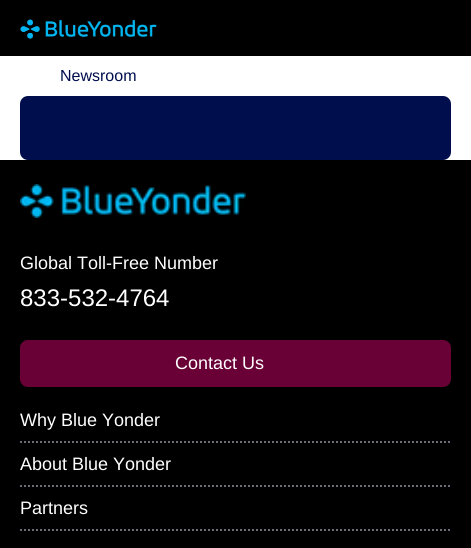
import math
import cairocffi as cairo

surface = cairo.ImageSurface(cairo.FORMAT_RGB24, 471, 548)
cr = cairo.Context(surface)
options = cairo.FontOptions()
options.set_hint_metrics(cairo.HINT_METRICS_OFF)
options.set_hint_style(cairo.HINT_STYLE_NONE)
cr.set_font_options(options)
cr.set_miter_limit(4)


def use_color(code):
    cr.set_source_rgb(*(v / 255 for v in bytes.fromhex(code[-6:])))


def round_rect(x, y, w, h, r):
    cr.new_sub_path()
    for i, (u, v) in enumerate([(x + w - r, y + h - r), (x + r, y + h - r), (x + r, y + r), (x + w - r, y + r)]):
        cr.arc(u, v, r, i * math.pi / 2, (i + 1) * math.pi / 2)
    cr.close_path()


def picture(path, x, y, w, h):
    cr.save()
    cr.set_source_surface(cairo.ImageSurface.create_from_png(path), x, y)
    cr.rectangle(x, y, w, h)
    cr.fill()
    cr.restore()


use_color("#ffffff")
cr.paint()
use_color("#000000")
cr.rectangle(0, 0, 471, 56)
cr.fill()
picture("img1.png", 20, 19, 137, 20)
cr.select_font_face("Liberation Sans")
cr.set_font_size(16)
use_color("#000e4e")
cr.move_to(60, 81)
cr.show_text("Newsroom")
round_rect(20, 96, 431, 64, 8)
cr.fill()
use_color("#000000")
cr.rectangle(0, 160, 471, 388)
cr.fill()
picture("img2.png", 20, 184, 226, 34)
cr.set_font_size(18)
use_color("#ffffff")
cr.move_to(20, 269)
cr.show_text("Global Toll-Free Number")
cr.set_font_size(24)
cr.move_to(20, 306)
cr.show_text("833-532-4764")
use_color("#6a0136")
round_rect(20, 340, 431, 47, 8)
cr.fill()
cr.set_font_size(18)
use_color("#ffffff")
cr.move_to(175, 369)
cr.show_text("Contact Us")
cr.new_path()
cr.move_to(20, 442)
cr.line_to(451, 442)
use_color("#6b6d76")
cr.set_dash([2, 2])
cr.stroke()
use_color("#ffffff")
cr.move_to(20, 426)
cr.show_text("Why Blue Yonder")
cr.new_path()
cr.move_to(20, 486)
cr.line_to(451, 486)
use_color("#6b6d76")
cr.stroke()
use_color("#ffffff")
cr.move_to(20, 470)
cr.show_text("About Blue Yonder")
cr.new_path()
cr.move_to(20, 530)
cr.line_to(451, 530)
use_color("#6b6d76")
cr.stroke()
use_color("#ffffff")
cr.move_to(20, 514)
cr.show_text("Partners")
surface.write_to_png("result.png")
